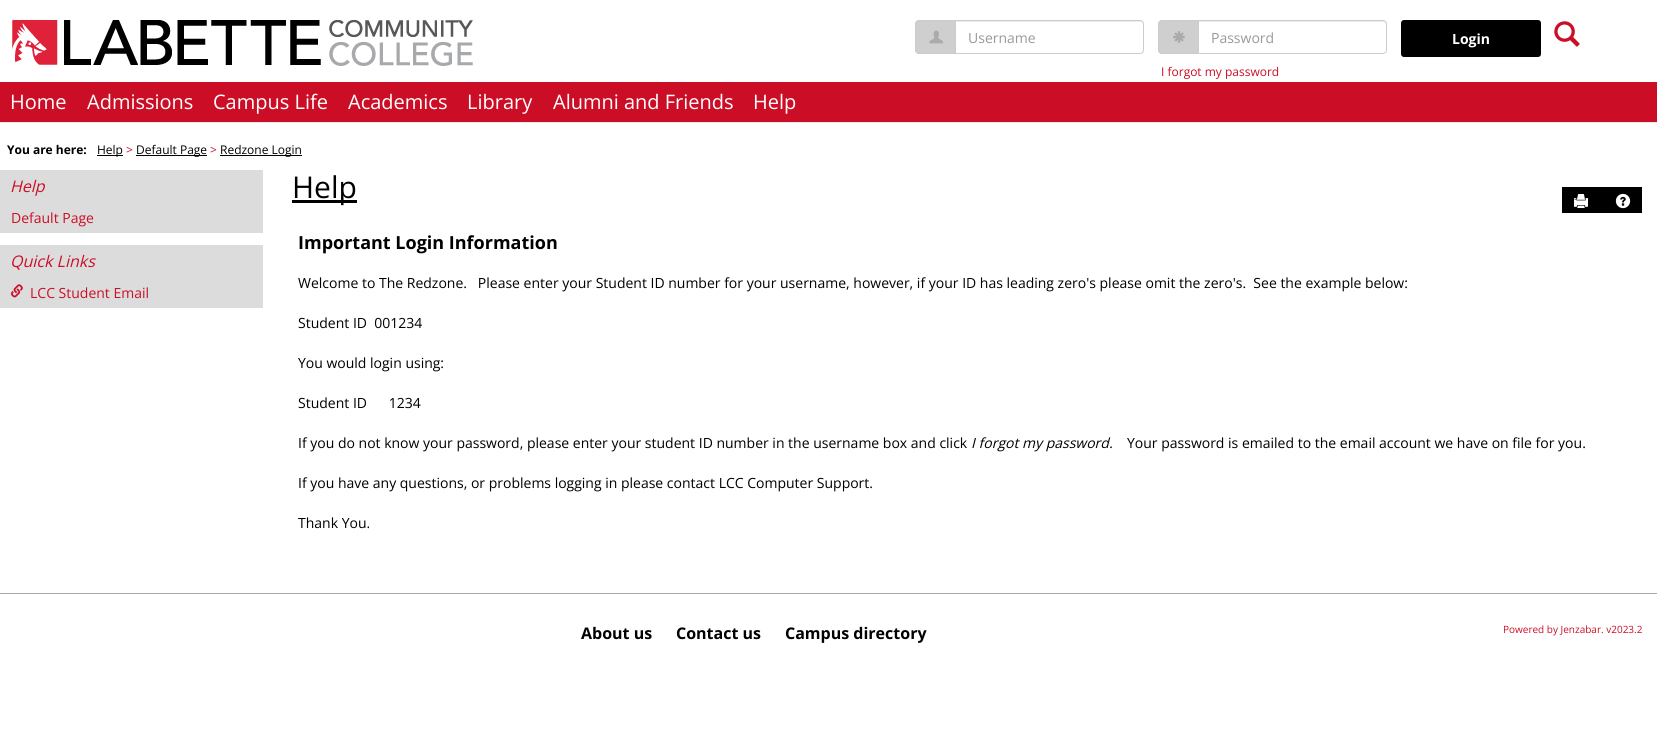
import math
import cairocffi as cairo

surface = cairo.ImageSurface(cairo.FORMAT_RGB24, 1657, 742)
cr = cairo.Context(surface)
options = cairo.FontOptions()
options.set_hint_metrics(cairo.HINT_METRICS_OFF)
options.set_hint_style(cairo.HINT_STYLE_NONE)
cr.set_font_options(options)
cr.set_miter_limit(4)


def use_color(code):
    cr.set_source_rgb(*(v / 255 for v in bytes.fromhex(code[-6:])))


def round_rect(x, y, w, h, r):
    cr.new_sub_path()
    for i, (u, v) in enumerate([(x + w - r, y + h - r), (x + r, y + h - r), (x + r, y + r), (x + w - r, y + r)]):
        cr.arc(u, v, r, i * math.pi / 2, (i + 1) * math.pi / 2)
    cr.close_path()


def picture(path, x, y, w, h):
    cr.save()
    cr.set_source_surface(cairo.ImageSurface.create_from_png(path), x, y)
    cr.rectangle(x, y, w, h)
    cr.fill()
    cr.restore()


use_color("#ffffff")
cr.paint()
picture("img1.png", 12, 20, 461, 46)
use_color("#cfcfcf")
cr.new_path()
cr.move_to(919, 20)
cr.line_to(955, 20)
cr.line_to(955, 54)
cr.line_to(919, 54)
cr.curve_to(917, 54, 915, 52, 915, 50)
cr.line_to(915, 24)
cr.curve_to(915, 22, 917, 20, 919, 20)
cr.close_path()
cr.fill()
use_color("#cccccc")
cr.set_fill_rule(cairo.FILL_RULE_EVEN_ODD)
cr.new_path()
cr.move_to(919, 20)
cr.line_to(955, 20)
cr.line_to(955, 54)
cr.line_to(919, 54)
cr.curve_to(917, 54, 915, 52, 915, 50)
cr.line_to(915, 24)
cr.curve_to(915, 22, 917, 20, 919, 20)
cr.close_path()
cr.move_to(919, 21)
cr.line_to(955, 21)
cr.line_to(955, 53)
cr.line_to(919, 53)
cr.curve_to(917, 53, 916, 52, 916, 50)
cr.line_to(916, 24)
cr.curve_to(916, 22, 917, 21, 919, 21)
cr.close_path()
cr.fill()
picture("img2.png", 929, 30, 14, 14)
use_color("#ececec")
cr.set_fill_rule(cairo.FILL_RULE_WINDING)
cr.new_path()
cr.move_to(956, 22)
cr.line_to(1140, 22)
cr.curve_to(1142, 22, 1143, 23, 1143, 25)
cr.curve_to(1143, 23, 1142, 21, 1140, 21)
cr.line_to(956, 21)
cr.close_path()
cr.fill()
cr.new_path()
cr.move_to(955.5, 20.5)
cr.line_to(1140, 20.5)
cr.curve_to(1142, 20.5, 1143.5, 22, 1143.5, 24)
cr.line_to(1143.5, 50)
cr.curve_to(1143.5, 52, 1142, 53.5, 1140, 53.5)
cr.line_to(955.5, 53.5)
cr.close_path()
use_color("#cccccc")
cr.set_line_width(1)
cr.stroke()
cr.select_font_face("Open Sans")
cr.set_font_size(14)
use_color("#999999")
cr.move_to(968, 43)
cr.show_text("Username")
use_color("#cfcfcf")
cr.new_path()
cr.move_to(1162, 20)
cr.line_to(1198, 20)
cr.line_to(1198, 54)
cr.line_to(1162, 54)
cr.curve_to(1160, 54, 1158, 52, 1158, 50)
cr.line_to(1158, 24)
cr.curve_to(1158, 22, 1160, 20, 1162, 20)
cr.close_path()
cr.fill()
use_color("#cccccc")
cr.set_fill_rule(cairo.FILL_RULE_EVEN_ODD)
cr.new_path()
cr.move_to(1162, 20)
cr.line_to(1198, 20)
cr.line_to(1198, 54)
cr.line_to(1162, 54)
cr.curve_to(1160, 54, 1158, 52, 1158, 50)
cr.line_to(1158, 24)
cr.curve_to(1158, 22, 1160, 20, 1162, 20)
cr.close_path()
cr.move_to(1162, 21)
cr.line_to(1198, 21)
cr.line_to(1198, 53)
cr.line_to(1162, 53)
cr.curve_to(1160, 53, 1159, 52, 1159, 50)
cr.line_to(1159, 24)
cr.curve_to(1159, 22, 1160, 21, 1162, 21)
cr.close_path()
cr.fill()
picture("img3.png", 1173, 31, 12, 12)
use_color("#ececec")
cr.set_fill_rule(cairo.FILL_RULE_WINDING)
cr.new_path()
cr.move_to(1199, 22)
cr.line_to(1383, 22)
cr.curve_to(1385, 22, 1386, 23, 1386, 25)
cr.curve_to(1386, 23, 1385, 21, 1383, 21)
cr.line_to(1199, 21)
cr.close_path()
cr.fill()
cr.new_path()
cr.move_to(1198.5, 20.5)
cr.line_to(1383, 20.5)
cr.curve_to(1385, 20.5, 1386.5, 22, 1386.5, 24)
cr.line_to(1386.5, 50)
cr.curve_to(1386.5, 52, 1385, 53.5, 1383, 53.5)
cr.line_to(1198.5, 53.5)
cr.close_path()
use_color("#cccccc")
cr.stroke()
use_color("#999999")
cr.move_to(1211, 43)
cr.show_text("Password")
use_color("#000000")
round_rect(1401, 20, 140, 37, 3)
cr.fill()
cr.select_font_face("Open Sans", cairo.FONT_SLANT_NORMAL, cairo.FONT_WEIGHT_BOLD)
use_color("#ffffff")
cr.move_to(1452, 44)
cr.show_text("Login")
cr.select_font_face("Open Sans")
cr.set_font_size(12)
use_color("#cb0e26")
cr.move_to(1161, 76)
cr.show_text("I forgot my password")
picture("img4.png", 1554, 21, 26, 26)
cr.rectangle(0, 82, 1657, 40)
cr.fill()
use_color("#e7e7e7")
cr.rectangle(0, 122, 1657, 1)
cr.fill()
cr.set_font_size(20)
use_color("#ffffff")
cr.move_to(10, 109)
cr.show_text("Home")
cr.move_to(87, 109)
cr.show_text("Admissions")
cr.move_to(213, 109)
cr.show_text("Campus Life")
cr.move_to(348, 109)
cr.show_text("Academics")
cr.move_to(467, 109)
cr.show_text("Library")
cr.move_to(553, 109)
cr.show_text("Alumni and Friends")
cr.move_to(753, 109)
cr.show_text("Help")
cr.select_font_face("Open Sans", cairo.FONT_SLANT_NORMAL, cairo.FONT_WEIGHT_BOLD)
cr.set_font_size(12)
use_color("#000000")
cr.move_to(7, 154)
cr.show_text("You are here:")
cr.rectangle(97, 155, 26, 1)
cr.fill()
cr.select_font_face("Open Sans")
cr.move_to(97, 154)
cr.show_text("Help")
use_color("#cb0e26")
cr.move_to(126, 154)
cr.show_text(">")
use_color("#000000")
cr.rectangle(136, 155, 71, 1)
cr.fill()
cr.move_to(136, 154)
cr.show_text("Default Page")
use_color("#cb0e26")
cr.move_to(210, 154)
cr.show_text(">")
use_color("#000000")
cr.rectangle(220, 155, 82, 1)
cr.fill()
cr.move_to(220, 154)
cr.show_text("Redzone Login")
use_color("#dcdcdc")
cr.rectangle(0, 170, 263, 138)
cr.fill()
cr.select_font_face("Open Sans", cairo.FONT_SLANT_ITALIC)
cr.set_font_size(16)
use_color("#cb0e26")
cr.move_to(10, 192)
cr.show_text("Help")
cr.select_font_face("Open Sans")
cr.set_font_size(14)
cr.move_to(11, 223)
cr.show_text("Default Page")
use_color("#ffffff")
cr.rectangle(0, 233, 263, 12)
cr.fill()
cr.select_font_face("Open Sans", cairo.FONT_SLANT_ITALIC)
cr.set_font_size(16)
use_color("#cb0e26")
cr.move_to(10, 267)
cr.show_text("Quick Links")
picture("img5.png", 10, 284, 13, 14)
cr.select_font_face("Open Sans")
cr.set_font_size(14)
cr.move_to(30, 298)
cr.show_text("LCC Student Email")
use_color("#000000")
cr.rectangle(292, 200, 65, 3)
cr.fill()
cr.set_font_size(30)
cr.move_to(292, 198)
cr.show_text("Help")
cr.rectangle(1562, 187, 80, 26)
cr.fill()
picture("img6.png", 1574, 194, 14, 14)
picture("img7.png", 1615, 193, 16, 16)
cr.select_font_face("Open Sans", cairo.FONT_SLANT_NORMAL, cairo.FONT_WEIGHT_BOLD)
cr.set_font_size(18)
cr.move_to(298, 249)
cr.show_text("Important Login Information")
cr.select_font_face("Open Sans")
cr.set_font_size(14)
cr.move_to(298, 288)
cr.show_text("Welcome to The Redzone.   Please enter your Student ID number for your username, however, if your ID has leading zero's please omit the zero's.  See the example below:")
cr.move_to(298, 328)
cr.show_text("Student ID  001234")
cr.move_to(298, 368)
cr.show_text("You would login using:")
cr.move_to(298, 408)
cr.show_text("Student ID      1234")
cr.move_to(298, 448)
cr.show_text("If you do not know your password, please enter your student ID number in the username box and click")
cr.select_font_face("Open Sans", cairo.FONT_SLANT_ITALIC)
cr.move_to(971, 448)
cr.show_text("I forgot my password.")
cr.select_font_face("Open Sans")
cr.move_to(1127, 448)
cr.show_text("Your password is emailed to the email account we have on file for you.")
cr.move_to(298, 488)
cr.show_text("If you have any questions, or problems logging in please contact LCC Computer Support.")
cr.move_to(298, 528)
cr.show_text("Thank You.")
use_color("#a9a9a9")
cr.rectangle(0, 593, 1657, 1)
cr.fill()
cr.select_font_face("Open Sans", cairo.FONT_SLANT_NORMAL, cairo.FONT_WEIGHT_BOLD)
cr.set_font_size(16)
use_color("#000000")
cr.move_to(581, 639)
cr.show_text("About us")
cr.move_to(676, 639)
cr.show_text("Contact us")
cr.move_to(785, 639)
cr.show_text("Campus directory")
cr.select_font_face("Open Sans")
cr.set_font_size(10)
use_color("#cb0e26")
cr.move_to(1503, 633)
cr.show_text("Powered by Jenzabar. v2023.2")
surface.write_to_png("result.png")
